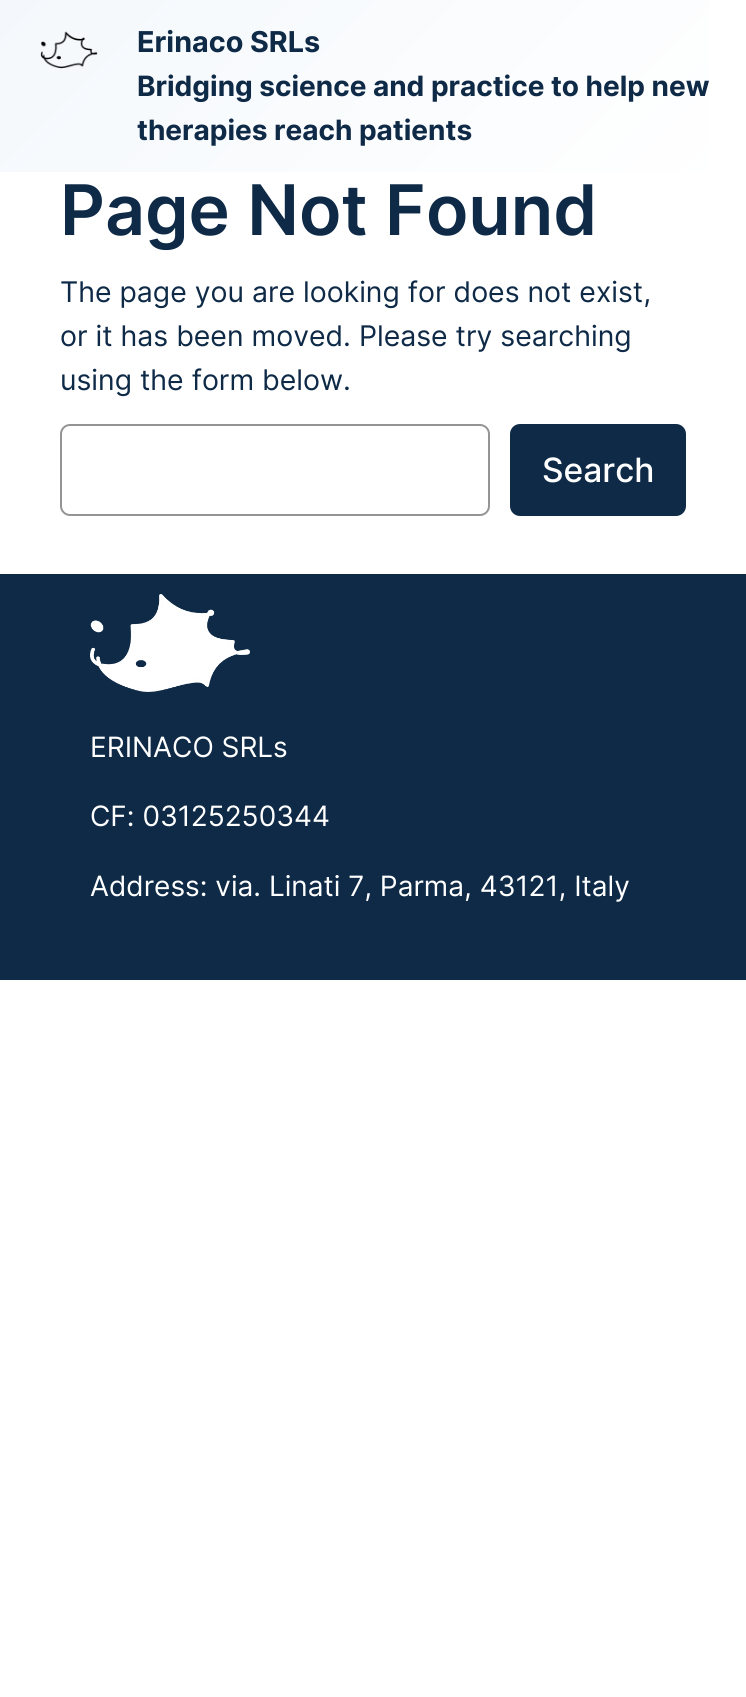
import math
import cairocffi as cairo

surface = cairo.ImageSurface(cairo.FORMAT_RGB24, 746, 1697)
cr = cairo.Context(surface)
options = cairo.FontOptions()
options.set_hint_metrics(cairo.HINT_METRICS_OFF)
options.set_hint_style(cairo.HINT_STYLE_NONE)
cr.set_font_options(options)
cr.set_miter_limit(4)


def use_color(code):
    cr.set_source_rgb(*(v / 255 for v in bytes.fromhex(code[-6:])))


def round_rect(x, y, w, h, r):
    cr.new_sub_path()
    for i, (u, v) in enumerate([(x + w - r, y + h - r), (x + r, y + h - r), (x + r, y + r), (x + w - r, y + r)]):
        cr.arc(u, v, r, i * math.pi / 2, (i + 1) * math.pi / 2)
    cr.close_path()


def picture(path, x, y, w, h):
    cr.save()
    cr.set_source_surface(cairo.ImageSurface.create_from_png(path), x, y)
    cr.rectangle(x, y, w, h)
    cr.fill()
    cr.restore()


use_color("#ffffff")
cr.paint()
gradient = cairo.LinearGradient(143, -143, 603, 316)
gradient.add_color_stop_rgba(0, 0.957, 0.973, 0.988, 1)
gradient.add_color_stop_rgba(1, 1, 1, 1, 1)
cr.set_source(gradient)
cr.rectangle(0, 0, 709, 172)
cr.fill()
picture("img1.png", 40, 31, 58, 38)
cr.select_font_face("Inter", cairo.FONT_SLANT_NORMAL, cairo.FONT_WEIGHT_BOLD)
cr.set_font_size(28.75)
use_color("#0e2a47")
cr.move_to(137, 52)
cr.show_text("Erinaco SRLs")
cr.set_font_size(28)
cr.move_to(137, 96)
cr.show_text("Bridging science and practice to help new")
cr.move_to(137, 140)
cr.show_text("therapies reach patients")
cr.select_font_face("Inter SemiBold")
cr.set_font_size(69.75)
cr.move_to(60, 235)
cr.show_text("Page Not Found")
cr.select_font_face("Inter")
cr.set_font_size(28.4)
cr.move_to(60, 302)
cr.show_text("The page you are looking for does not exist,")
cr.move_to(60, 346)
cr.show_text("or it has been moved. Please try searching")
cr.move_to(60, 390)
cr.show_text("using the form below.")
round_rect(61, 425, 428, 90, 9)
use_color("#949494")
cr.stroke()
use_color("#0e2a47")
round_rect(510, 424, 176, 92, 10)
cr.fill()
cr.select_font_face("Inter Medium")
cr.set_font_size(33.5)
use_color("#ffffff")
cr.move_to(542, 482)
cr.show_text("Search")
use_color("#0e2a47")
cr.rectangle(0, 574, 746, 406)
cr.fill()
picture("img2.png", 90, 594, 160, 98)
cr.select_font_face("Inter")
cr.set_font_size(28)
use_color("#ffffff")
cr.move_to(90, 757)
cr.show_text("ERINACO SRLs")
cr.move_to(90, 826)
cr.show_text("CF: 03125250344")
cr.move_to(90, 896)
cr.show_text("Address: via. Linati 7, Parma, 43121, Italy")
surface.write_to_png("result.png")
